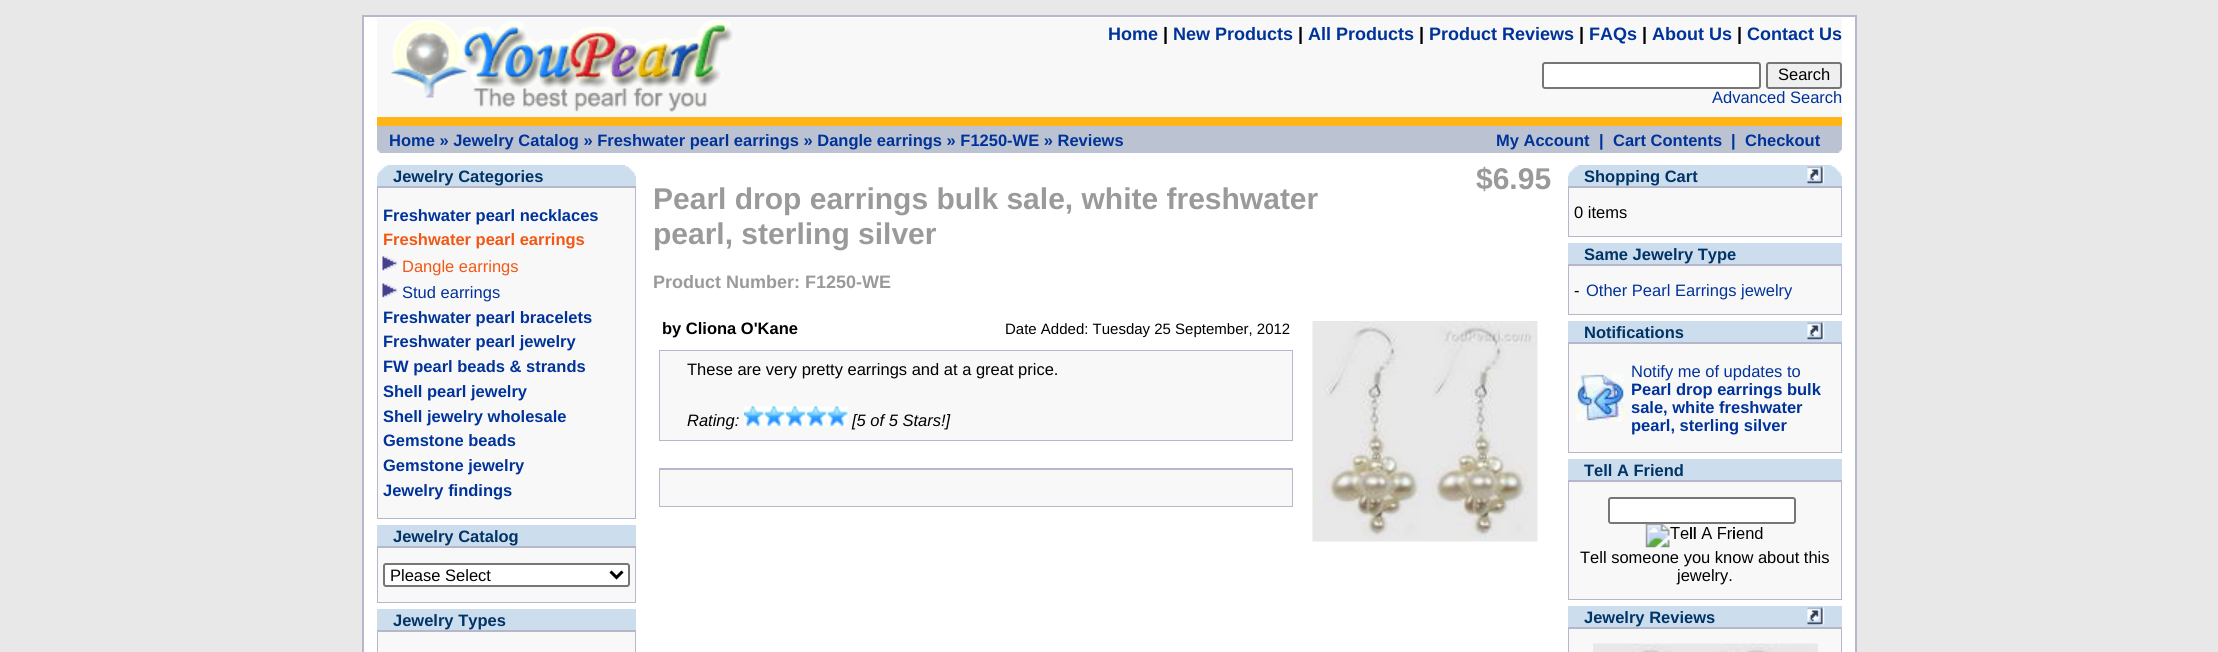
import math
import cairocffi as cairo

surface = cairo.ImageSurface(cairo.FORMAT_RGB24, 2218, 652)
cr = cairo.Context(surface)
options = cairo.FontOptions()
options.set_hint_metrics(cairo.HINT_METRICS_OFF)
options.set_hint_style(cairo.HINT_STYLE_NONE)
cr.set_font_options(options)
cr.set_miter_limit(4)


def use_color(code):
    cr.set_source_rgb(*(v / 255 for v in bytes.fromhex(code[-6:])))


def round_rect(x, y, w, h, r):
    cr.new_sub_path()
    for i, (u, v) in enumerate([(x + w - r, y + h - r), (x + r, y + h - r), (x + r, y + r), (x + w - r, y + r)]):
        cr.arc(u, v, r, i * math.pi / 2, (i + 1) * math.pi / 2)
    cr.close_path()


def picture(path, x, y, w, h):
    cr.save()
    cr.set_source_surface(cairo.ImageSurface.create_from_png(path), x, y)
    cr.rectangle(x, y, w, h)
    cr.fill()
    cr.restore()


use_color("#e8e8e8")
cr.paint()
use_color("#ffffff")
cr.rectangle(363, 16, 1493, 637)
cr.fill_preserve()
use_color("#b6b7cb")
cr.stroke()
use_color("#f8f8f9")
cr.rectangle(377, 18, 1465, 99)
cr.fill()
picture("img1.png", 390, 20, 345, 92)
cr.select_font_face("Liberation Sans", cairo.FONT_SLANT_NORMAL, cairo.FONT_WEIGHT_BOLD)
cr.set_font_size(18)
use_color("#003399")
cr.move_to(1108, 40)
cr.show_text("Home")
use_color("#000000")
cr.move_to(1163, 40)
cr.show_text("|")
use_color("#003399")
cr.move_to(1173, 40)
cr.show_text("New Products")
use_color("#000000")
cr.move_to(1298, 40)
cr.show_text("|")
use_color("#003399")
cr.move_to(1308, 40)
cr.show_text("All Products")
use_color("#000000")
cr.move_to(1419, 40)
cr.show_text("|")
use_color("#003399")
cr.move_to(1429, 40)
cr.show_text("Product Reviews")
use_color("#000000")
cr.move_to(1579, 40)
cr.show_text("|")
use_color("#003399")
cr.move_to(1589, 40)
cr.show_text("FAQs")
use_color("#000000")
cr.move_to(1642, 40)
cr.show_text("|")
use_color("#003399")
cr.move_to(1652, 40)
cr.show_text("About Us")
use_color("#000000")
cr.move_to(1737, 40)
cr.show_text("|")
use_color("#003399")
cr.move_to(1747, 40)
cr.show_text("Contact Us")
use_color("#ffffff")
round_rect(1543, 63, 217, 25, 2)
cr.fill_preserve()
use_color("#767676")
cr.stroke()
use_color("#efefef")
round_rect(1767, 63, 74, 25, 2)
cr.fill_preserve()
use_color("#767676")
cr.stroke()
cr.select_font_face("Liberation Sans")
cr.set_font_size(16.5)
use_color("#000000")
cr.move_to(1778, 80)
cr.show_text("Search")
use_color("#003399")
cr.move_to(1712, 103)
cr.show_text("Advanced Search")
use_color("#ffb515")
cr.rectangle(377, 117, 1465, 9)
cr.fill()
use_color("#bbc3d3")
cr.rectangle(377, 126, 1465, 27)
cr.fill()
cr.select_font_face("Liberation Sans", cairo.FONT_SLANT_NORMAL, cairo.FONT_WEIGHT_BOLD)
use_color("#003399")
cr.move_to(389, 146)
cr.show_text("Home » Jewelry Catalog » Freshwater pearl earrings » Dangle earrings » F1250-WE » Reviews")
cr.move_to(1496, 146)
cr.show_text("My Account")
cr.move_to(1599, 146)
cr.show_text("|")
cr.move_to(1613, 146)
cr.show_text("Cart Contents")
cr.move_to(1731, 146)
cr.show_text("|")
cr.move_to(1745, 146)
cr.show_text("Checkout")
picture("img2.png", 377, 149, 3, 4)
picture("img3.png", 1838, 149, 4, 4)
use_color("#ccddee")
cr.rectangle(377, 165, 259, 21)
cr.fill()
picture("img4.png", 377, 165, 11, 11)
use_color("#003366")
cr.move_to(393, 182)
cr.show_text("Jewelry Categories")
picture("img5.png", 625, 165, 11, 11)
use_color("#b6b7cb")
cr.rectangle(377, 186, 259, 333)
cr.fill()
use_color("#f8f8f9")
cr.rectangle(378, 188, 257, 330)
cr.fill()
use_color("#003399")
cr.move_to(383, 221)
cr.show_text("Freshwater pearl necklaces")
use_color("#f25713")
cr.move_to(383, 245)
cr.show_text("Freshwater pearl earrings")
picture("img6.png", 382, 256, 16, 15)
cr.select_font_face("Liberation Sans")
cr.move_to(402, 272)
cr.show_text("Dangle earrings")
picture("img6.png", 382, 283, 16, 15)
use_color("#003399")
cr.move_to(402, 298)
cr.show_text("Stud earrings")
cr.select_font_face("Liberation Sans", cairo.FONT_SLANT_NORMAL, cairo.FONT_WEIGHT_BOLD)
cr.move_to(383, 323)
cr.show_text("Freshwater pearl bracelets")
cr.move_to(383, 347)
cr.show_text("Freshwater pearl jewelry")
cr.move_to(383, 372)
cr.show_text("FW pearl beads & strands")
cr.move_to(383, 397)
cr.show_text("Shell pearl jewelry")
cr.move_to(383, 422)
cr.show_text("Shell jewelry wholesale")
cr.move_to(383, 446)
cr.show_text("Gemstone beads")
cr.move_to(383, 471)
cr.show_text("Gemstone jewelry")
cr.move_to(383, 496)
cr.show_text("Jewelry findings")
use_color("#ccddee")
cr.rectangle(377, 525, 259, 21)
cr.fill()
use_color("#003366")
cr.move_to(393, 542)
cr.show_text("Jewelry Catalog")
use_color("#b6b7cb")
cr.rectangle(377, 546, 259, 57)
cr.fill()
use_color("#f8f8f9")
cr.rectangle(378, 548, 257, 54)
cr.fill()
use_color("#ffffff")
round_rect(384, 564, 245, 22, 2)
cr.fill_preserve()
use_color("#767676")
cr.stroke()
cr.new_path()
cr.move_to(610.5, 571.5)
cr.line_to(616.5, 577.5)
cr.line_to(622.5, 571.5)
use_color("#000000")
cr.set_line_width(3)
cr.stroke()
cr.select_font_face("Liberation Sans")
cr.move_to(390, 581)
cr.show_text("Please Select")
use_color("#ccddee")
cr.rectangle(377, 609, 259, 21)
cr.fill()
cr.select_font_face("Liberation Sans", cairo.FONT_SLANT_NORMAL, cairo.FONT_WEIGHT_BOLD)
use_color("#003366")
cr.move_to(393, 626)
cr.show_text("Jewelry Types")
use_color("#b6b7cb")
cr.rectangle(377, 630, 259, 22)
cr.fill()
use_color("#f8f8f9")
cr.rectangle(378, 632, 257, 20)
cr.fill()
cr.set_font_size(30)
use_color("#9a9a9a")
cr.move_to(1476, 189)
cr.show_text("$6.95")
cr.move_to(653, 209)
cr.show_text("Pearl drop earrings bulk sale, white freshwater")
cr.move_to(653, 244)
cr.show_text("pearl, sterling silver")
cr.set_font_size(18)
cr.move_to(653, 288)
cr.show_text("Product Number: F1250-WE")
cr.set_font_size(16.5)
use_color("#000000")
cr.move_to(662, 334)
cr.show_text("by Cliona O'Kane")
cr.select_font_face("Liberation Sans")
cr.set_font_size(15)
cr.move_to(1005, 334)
cr.show_text("Date Added: Tuesday 25 September, 2012")
use_color("#b6b7cb")
cr.rectangle(659, 350, 634, 91)
cr.fill()
use_color("#f8f8f9")
cr.rectangle(660, 351, 632, 89)
cr.fill()
cr.set_font_size(16.5)
use_color("#000000")
cr.move_to(687, 375)
cr.show_text("These are very pretty earrings and at a great price.")
cr.select_font_face("Liberation Sans", cairo.FONT_SLANT_ITALIC)
cr.move_to(687, 426)
cr.show_text("Rating:")
picture("img7.png", 744, 406, 104, 20)
cr.move_to(852, 426)
cr.show_text("[5 of 5 Stars!]")
use_color("#b6b7cb")
cr.rectangle(659, 468, 634, 39)
cr.fill()
use_color("#f8f8f9")
cr.rectangle(660, 470, 632, 36)
cr.fill()
picture("img8.png", 1312, 321, 226, 221)
use_color("#ccddee")
cr.rectangle(1568, 165, 274, 21)
cr.fill()
picture("img9.png", 1568, 165, 11, 11)
cr.select_font_face("Liberation Sans", cairo.FONT_SLANT_NORMAL, cairo.FONT_WEIGHT_BOLD)
use_color("#003366")
cr.move_to(1584, 182)
cr.show_text("Shopping Cart")
picture("img10.png", 1807, 166, 18, 19)
picture("img11.png", 1831, 165, 11, 11)
use_color("#b6b7cb")
cr.rectangle(1568, 186, 274, 51)
cr.fill()
use_color("#f8f8f9")
cr.rectangle(1569, 188, 272, 48)
cr.fill()
cr.select_font_face("Liberation Sans")
use_color("#000000")
cr.move_to(1574, 218)
cr.show_text("0 items")
use_color("#ccddee")
cr.rectangle(1568, 243, 274, 21)
cr.fill()
cr.select_font_face("Liberation Sans", cairo.FONT_SLANT_NORMAL, cairo.FONT_WEIGHT_BOLD)
use_color("#003366")
cr.move_to(1584, 260)
cr.show_text("Same Jewelry Type")
use_color("#b6b7cb")
cr.rectangle(1568, 264, 274, 51)
cr.fill()
use_color("#f8f8f9")
cr.rectangle(1569, 266, 272, 48)
cr.fill()
cr.select_font_face("Liberation Sans")
use_color("#000000")
cr.move_to(1574, 296)
cr.show_text("-")
use_color("#003399")
cr.move_to(1586, 296)
cr.show_text("Other Pearl Earrings jewelry")
use_color("#ccddee")
cr.rectangle(1568, 321, 274, 21)
cr.fill()
cr.select_font_face("Liberation Sans", cairo.FONT_SLANT_NORMAL, cairo.FONT_WEIGHT_BOLD)
use_color("#003366")
cr.move_to(1584, 338)
cr.show_text("Notifications")
picture("img10.png", 1807, 322, 18, 19)
use_color("#b6b7cb")
cr.rectangle(1568, 342, 274, 111)
cr.fill()
use_color("#f8f8f9")
cr.rectangle(1569, 344, 272, 108)
cr.fill()
picture("img12.png", 1576, 373, 49, 49)
cr.select_font_face("Liberation Sans")
use_color("#003399")
cr.move_to(1631, 377)
cr.show_text("Notify me of updates to")
cr.select_font_face("Liberation Sans", cairo.FONT_SLANT_NORMAL, cairo.FONT_WEIGHT_BOLD)
cr.move_to(1631, 395)
cr.show_text("Pearl drop earrings bulk")
cr.move_to(1631, 413)
cr.show_text("sale, white freshwater")
cr.move_to(1631, 431)
cr.show_text("pearl, sterling silver")
use_color("#ccddee")
cr.rectangle(1568, 459, 274, 21)
cr.fill()
use_color("#003366")
cr.move_to(1584, 476)
cr.show_text("Tell A Friend")
use_color("#b6b7cb")
cr.rectangle(1568, 480, 274, 120)
cr.fill()
use_color("#f8f8f9")
cr.rectangle(1569, 482, 272, 117)
cr.fill()
use_color("#ffffff")
round_rect(1609, 498, 186, 25, 2)
cr.fill_preserve()
use_color("#767676")
cr.set_line_width(2)
cr.stroke()
picture("img13.png", 1645, 523, 118, 25)
cr.select_font_face("Liberation Sans")
use_color("#000000")
cr.move_to(1689, 539)
cr.show_text("ll")
cr.move_to(1732, 539)
cr.show_text("i")
cr.move_to(1580, 563)
cr.show_text("Tell someone you know about this")
cr.move_to(1677, 581)
cr.show_text("jewelry.")
use_color("#ccddee")
cr.rectangle(1568, 606, 274, 21)
cr.fill()
cr.select_font_face("Liberation Sans", cairo.FONT_SLANT_NORMAL, cairo.FONT_WEIGHT_BOLD)
use_color("#003366")
cr.move_to(1584, 623)
cr.show_text("Jewelry Reviews")
picture("img10.png", 1807, 607, 18, 19)
use_color("#b6b7cb")
cr.rectangle(1568, 627, 274, 25)
cr.fill()
use_color("#f8f8f9")
cr.rectangle(1569, 629, 272, 23)
cr.fill()
picture("img14.png", 1593, 643, 225, 9)
surface.write_to_png("result.png")
